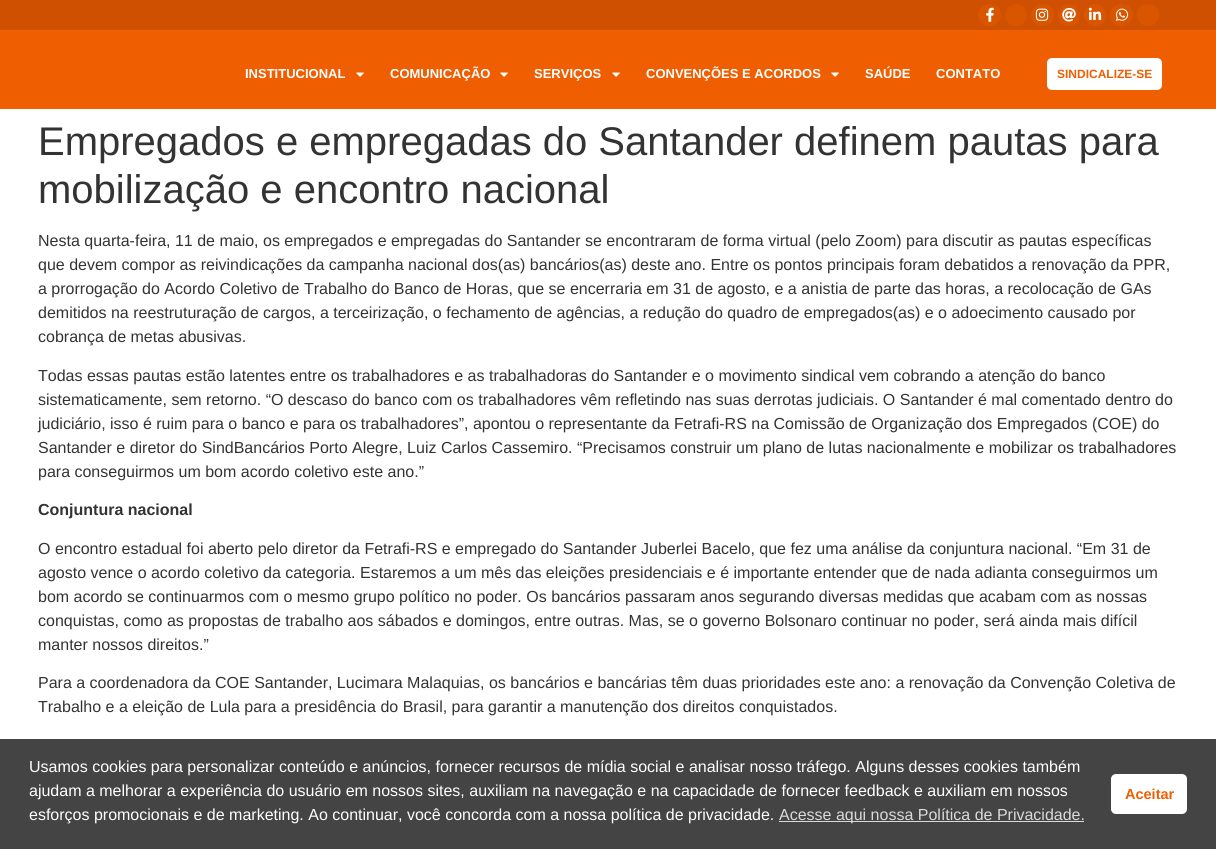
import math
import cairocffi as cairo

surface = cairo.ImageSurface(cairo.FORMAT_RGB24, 1216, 849)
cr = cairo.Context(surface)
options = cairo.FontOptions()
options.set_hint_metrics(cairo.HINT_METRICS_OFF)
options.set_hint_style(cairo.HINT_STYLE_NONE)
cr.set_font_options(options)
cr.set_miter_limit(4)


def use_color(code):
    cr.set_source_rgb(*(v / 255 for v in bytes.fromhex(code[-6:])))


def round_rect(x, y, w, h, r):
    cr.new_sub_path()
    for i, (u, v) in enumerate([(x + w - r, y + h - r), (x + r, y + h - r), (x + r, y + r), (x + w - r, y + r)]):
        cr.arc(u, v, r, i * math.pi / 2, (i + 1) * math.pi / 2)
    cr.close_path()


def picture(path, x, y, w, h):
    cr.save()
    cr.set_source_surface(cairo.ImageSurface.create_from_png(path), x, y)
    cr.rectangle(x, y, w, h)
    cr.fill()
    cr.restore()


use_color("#ffffff")
cr.paint()
use_color("#ce5000")
cr.rectangle(0, 0, 1216, 30)
cr.fill()
use_color("#da5500")
round_rect(978, 4, 23, 22, 11)
cr.fill()
picture("img1.png", 986, 7, 8, 15)
cr.arc(1016, 15, 11, 0, 2 * math.pi)
cr.fill()
round_rect(1031, 4, 23, 22, 11)
cr.fill()
picture("img2.png", 1035, 8, 14, 13)
cr.arc(1069, 15, 11, 0, 2 * math.pi)
cr.fill()
picture("img3.png", 1062, 8, 14, 14)
cr.arc(1095, 15, 11, 0, 2 * math.pi)
cr.fill()
picture("img4.png", 1088, 7, 14, 13)
round_rect(1110, 4, 23, 22, 11)
cr.fill()
picture("img5.png", 1115, 8, 14, 13)
cr.arc(1148, 15, 11, 0, 2 * math.pi)
cr.fill()
use_color("#ef5e01")
cr.rectangle(0, 30, 1216, 79)
cr.fill()
cr.select_font_face("Liberation Sans", cairo.FONT_SLANT_NORMAL, cairo.FONT_WEIGHT_BOLD)
cr.set_font_size(13)
use_color("#ffffff")
cr.move_to(245, 78)
cr.show_text("INSTITUCIONAL")
picture("img6.png", 356, 72, 8, 5)
cr.move_to(390, 78)
cr.show_text("COMUNICAÇÃO")
picture("img6.png", 500, 72, 8, 5)
cr.move_to(534, 78)
cr.show_text("SERVIÇOS")
picture("img6.png", 612, 72, 8, 5)
cr.move_to(646, 78)
cr.show_text("CONVENÇÕES E ACORDOS")
picture("img6.png", 831, 72, 8, 5)
cr.move_to(865, 78)
cr.show_text("SAÚDE")
cr.move_to(936, 78)
cr.show_text("CONTATO")
round_rect(1047, 58, 115, 32, 5)
cr.fill()
cr.set_font_size(12)
use_color("#ef5e01")
cr.move_to(1057, 78)
cr.show_text("SINDICALIZE-SE")
cr.select_font_face("Liberation Sans")
cr.set_font_size(40)
use_color("#333333")
cr.move_to(38, 155)
cr.show_text("Empregados e empregadas do Santander definem pautas para")
cr.move_to(38, 203)
cr.show_text("mobilização e encontro nacional")
cr.set_font_size(16)
cr.move_to(38, 246)
cr.show_text("Nesta quarta-feira, 11 de maio, os empregados e empregadas do Santander se encontraram de forma virtual (pelo Zoom) para discutir as pautas específicas")
cr.move_to(38, 270)
cr.show_text("que devem compor as reivindicações da campanha nacional dos(as) bancários(as) deste ano. Entre os pontos principais foram debatidos a renovação da PPR,")
cr.move_to(38, 294)
cr.show_text("a prorrogação do Acordo Coletivo de Trabalho do Banco de Horas, que se encerraria em 31 de agosto, e a anistia de parte das horas, a recolocação de GAs")
cr.move_to(38, 318)
cr.show_text("demitidos na reestruturação de cargos, a terceirização, o fechamento de agências, a redução do quadro de empregados(as) e o adoecimento causado por")
cr.move_to(38, 342)
cr.show_text("cobrança de metas abusivas.")
cr.move_to(38, 381)
cr.show_text("Todas essas pautas estão latentes entre os trabalhadores e as trabalhadoras do Santander e o movimento sindical vem cobrando a atenção do banco")
cr.move_to(38, 405)
cr.show_text("sistematicamente, sem retorno. “O descaso do banco com os trabalhadores vêm refletindo nas suas derrotas judiciais. O Santander é mal comentado dentro do")
cr.move_to(38, 429)
cr.show_text("judiciário, isso é ruim para o banco e para os trabalhadores”, apontou o representante da Fetrafi-RS na Comissão de Organização dos Empregados (COE) do")
cr.move_to(38, 453)
cr.show_text("Santander e diretor do SindBancários Porto Alegre, Luiz Carlos Cassemiro. “Precisamos construir um plano de lutas nacionalmente e mobilizar os trabalhadores")
cr.move_to(38, 477)
cr.show_text("para conseguirmos um bom acordo coletivo este ano.”")
cr.select_font_face("Liberation Sans", cairo.FONT_SLANT_NORMAL, cairo.FONT_WEIGHT_BOLD)
cr.move_to(38, 515)
cr.show_text("Conjuntura nacional")
cr.select_font_face("Liberation Sans")
cr.move_to(38, 554)
cr.show_text("O encontro estadual foi aberto pelo diretor da Fetrafi-RS e empregado do Santander Juberlei Bacelo, que fez uma análise da conjuntura nacional. “Em 31 de")
cr.move_to(38, 578)
cr.show_text("agosto vence o acordo coletivo da categoria. Estaremos a um mês das eleições presidenciais e é importante entender que de nada adianta conseguirmos um")
cr.move_to(38, 602)
cr.show_text("bom acordo se continuarmos com o mesmo grupo político no poder. Os bancários passaram anos segurando diversas medidas que acabam com as nossas")
cr.move_to(38, 626)
cr.show_text("conquistas, como as propostas de trabalho aos sábados e domingos, entre outras. Mas, se o governo Bolsonaro continuar no poder, será ainda mais difícil")
cr.move_to(38, 650)
cr.show_text("manter nossos direitos.”")
cr.move_to(38, 688)
cr.show_text("Para a coordenadora da COE Santander, Lucimara Malaquias, os bancários e bancárias têm duas prioridades este ano: a renovação da Convenção Coletiva de")
cr.move_to(38, 712)
cr.show_text("Trabalho e a eleição de Lula para a presidência do Brasil, para garantir a manutenção dos direitos conquistados.")
use_color("#444444")
cr.rectangle(0, 739, 1216, 110)
cr.fill()
use_color("#ffffff")
cr.move_to(29, 772)
cr.show_text("Usamos cookies para personalizar conteúdo e anúncios, fornecer recursos de mídia social e analisar nosso tráfego. Alguns desses cookies também")
cr.move_to(29, 796)
cr.show_text("ajudam a melhorar a experiência do usuário em nossos sites, auxiliam na navegação e na capacidade de fornecer feedback e auxiliam em nossos")
cr.move_to(29, 820)
cr.show_text("esforços promocionais e de marketing. Ao continuar, você concorda com a nossa política de privacidade.")
use_color("#dadada")
cr.rectangle(779, 821, 305, 1)
cr.fill()
cr.move_to(779, 820)
cr.show_text("Acesse aqui nossa Política de Privacidade.")
use_color("#ffffff")
round_rect(1111, 774, 76, 40, 5)
cr.fill()
cr.select_font_face("Liberation Sans", cairo.FONT_SLANT_NORMAL, cairo.FONT_WEIGHT_BOLD)
cr.set_font_size(14.5)
use_color("#ef5e01")
cr.move_to(1125, 799)
cr.show_text("Aceitar")
surface.write_to_png("result.png")
